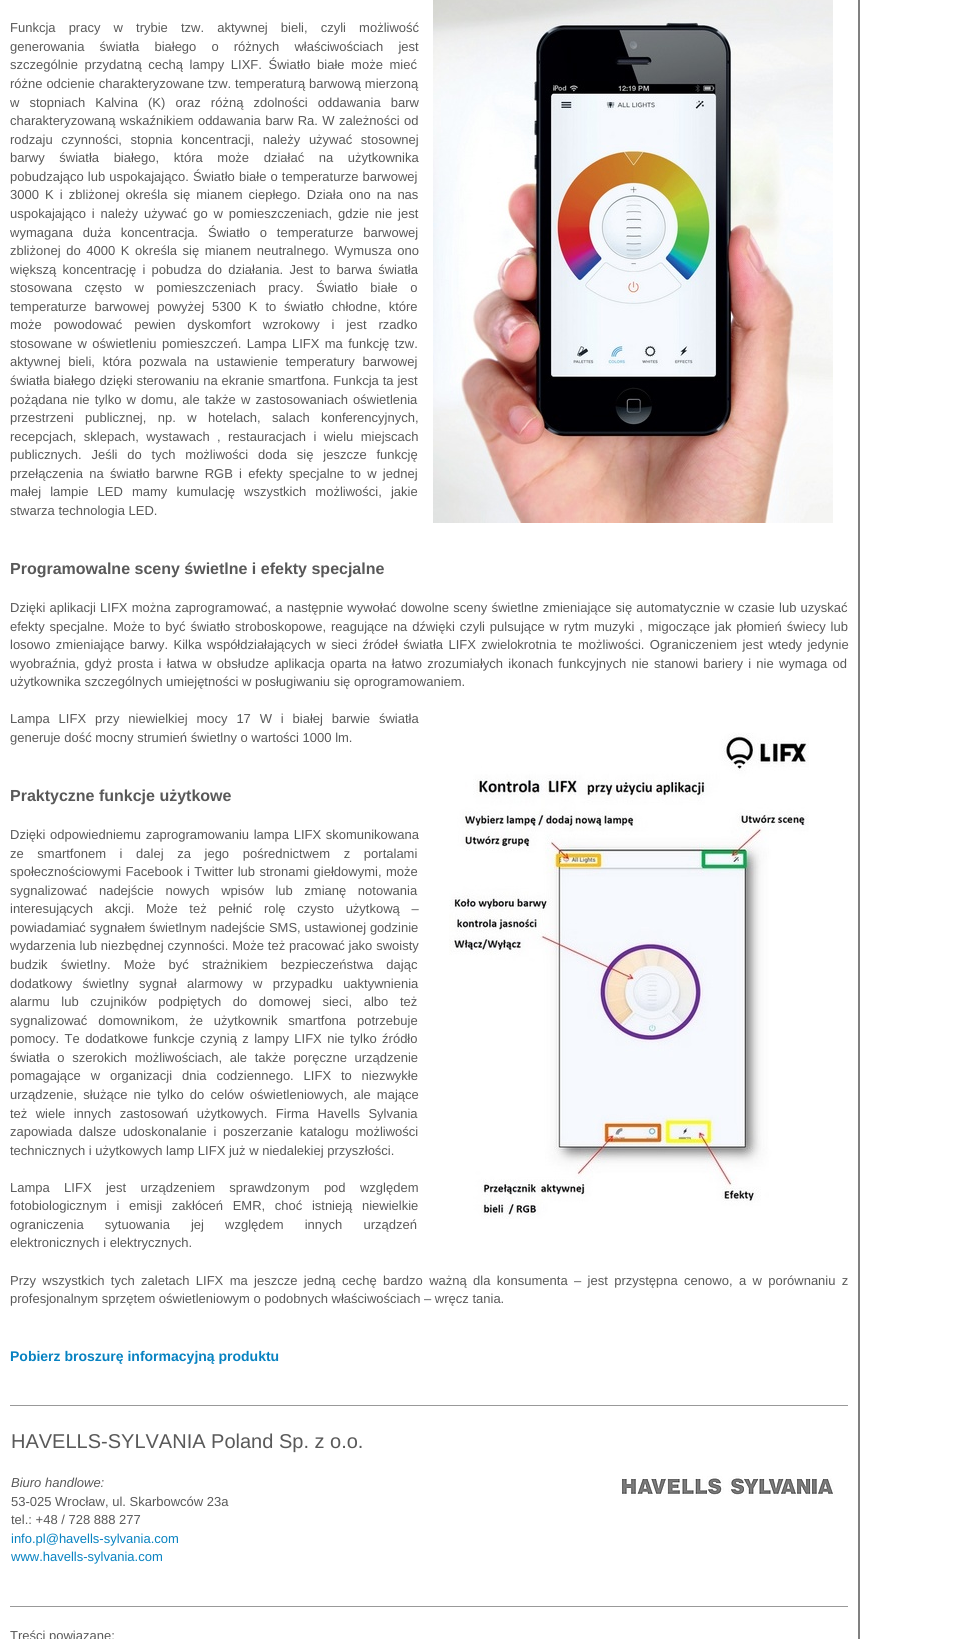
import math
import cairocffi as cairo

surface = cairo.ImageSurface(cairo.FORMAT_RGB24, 962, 1639)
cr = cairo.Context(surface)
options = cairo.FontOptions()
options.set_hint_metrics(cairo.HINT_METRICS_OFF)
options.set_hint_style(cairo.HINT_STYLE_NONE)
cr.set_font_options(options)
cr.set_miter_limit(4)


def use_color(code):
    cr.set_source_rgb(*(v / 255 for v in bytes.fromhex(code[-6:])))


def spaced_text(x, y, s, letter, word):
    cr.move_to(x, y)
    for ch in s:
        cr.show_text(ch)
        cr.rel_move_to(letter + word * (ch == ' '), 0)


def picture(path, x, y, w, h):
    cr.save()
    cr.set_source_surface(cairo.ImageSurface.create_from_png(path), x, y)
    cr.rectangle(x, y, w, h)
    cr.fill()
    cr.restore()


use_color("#ffffff")
cr.paint()
use_color("#808080")
cr.rectangle(858, 0, 2, 1639)
cr.fill()
cr.select_font_face("Liberation Sans")
cr.set_font_size(13)
use_color("#595959")
spaced_text(10, 32, "Funkcja pracy w trybie tzw. aktywnej bieli, czyli możliwość", 0, 9.5)
picture("img1.png", 433, 0, 400, 523)
spaced_text(10, 51, "generowania światła białego o różnych właściwościach jest", 0, 11.5)
spaced_text(10, 69, "szczególnie przydatną cechą lampy LIXF. Światło białe może mieć", 0, 3)
spaced_text(10, 88, "różne odcienie charakteryzowane tzw. temperaturą barwową mierzoną", 0, 0.25)
spaced_text(10, 107, "w stopniach Kalvina (K) oraz różną zdolności oddawania barw", 0, 6.5)
spaced_text(10, 125, "charakteryzowaną wskaźnikiem oddawania barw Ra. W zależności od", 0, 0.75)
spaced_text(10, 144, "rodzaju czynności, stopnia koncentracji, należy używać stosownej", 0, 5)
spaced_text(10, 162, "barwy światła białego, która może działać na użytkownika", 0, 11)
spaced_text(10, 181, "pobudzająco lub uspokajająco. Światło białe o temperaturze barwowej", 0, 0.5)
spaced_text(10, 199, "3000 K i zbliżonej określa się mianem ciepłego. Działa ono na nas", 0, 2.5)
spaced_text(10, 218, "uspokajająco i należy używać go w pomieszczeniach, gdzie nie jest", 0, 2.25)
spaced_text(10, 237, "wymagana duża koncentracja. Światło o temperaturze barwowej", 0, 6.25)
spaced_text(10, 255, "zbliżonej do 4000 K określa się mianem neutralnego. Wymusza ono", 0, 2)
spaced_text(10, 274, "większą koncentrację i pobudza do działania. Jest to barwa światła", 0, 2.6)
spaced_text(10, 292, "stosowana często w pomieszczeniach pracy. Światło białe o", 0, 8.75)
spaced_text(10, 311, "temperaturze barwowej powyżej 5300 K to światło chłodne, które", 0, 4.25)
spaced_text(10, 329, "może powodować pewien dyskomfort wzrokowy i jest rzadko", 0, 8.25)
spaced_text(10, 348, "stosowane w oświetleniu pomieszczeń. Lampa LIFX ma funkcję tzw.", 0, 1.75)
spaced_text(10, 366, "aktywnej bieli, która pozwala na ustawienie temperatury barwowej", 0, 4)
spaced_text(10, 385, "światła białego dzięki sterowaniu na ekranie smartfona. Funkcja ta jest", 0, 0.25)
spaced_text(10, 404, "pożądana nie tylko w domu, ale także w zastosowaniach oświetlenia", 0, 1.5)
spaced_text(10, 422, "przestrzeni publicznej, np. w hotelach, salach konferencyjnych,", 0, 7.75)
spaced_text(10, 441, "recepcjach, sklepach, wystawach , restauracjach i wielu miejscach", 0, 3.75)
spaced_text(10, 459, "publicznych. Jeśli do tych możliwości doda się jeszcze funkcję", 0, 6.25)
spaced_text(10, 478, "przełączenia na światło barwne RGB i efekty specjalne to w jednej", 0, 2.6)
spaced_text(10, 496, "małej lampie LED mamy kumulację wszystkich możliwości, jakie", 0, 5.5)
cr.move_to(10, 515)
cr.show_text("stwarza technologia LED.")
cr.select_font_face("Liberation Sans", cairo.FONT_SLANT_NORMAL, cairo.FONT_WEIGHT_BOLD)
cr.set_font_size(16)
cr.move_to(10, 574)
cr.show_text("Programowalne sceny świetlne i efekty specjalne")
cr.select_font_face("Liberation Sans")
cr.set_font_size(13)
spaced_text(10, 612, "Dzięki aplikacji LIFX można zaprogramować, a następnie wywołać dowolne sceny świetlne zmieniające się automatycznie w czasie lub uzyskać", 0, 0.6)
spaced_text(10, 631, "efekty specjalne. Może to być światło stroboskopowe, reagujące na dźwięki czyli pulsujące w rytm muzyki , migoczące jak płomień świecy lub", 0, 1.25)
spaced_text(10, 649, "losowo zmieniające barwy. Kilka współdziałających w sieci źródeł światła LIFX zwielokrotnia te możliwości. Ograniczeniem jest wtedy jedynie", 0, 1.75)
spaced_text(10, 668, "wyobraźnia, gdyż prosta i łatwa w obsłudze aplikacja oparta na łatwo zrozumiałych ikonach funkcyjnych nie stanowi bariery i nie wymaga od", 0, 1.6)
cr.move_to(10, 686)
cr.show_text("użytkownika szczególnych umiejętności w posługiwaniu się oprogramowaniem.")
spaced_text(10, 723, "Lampa LIFX przy niewielkiej mocy 17 W i białej barwie światła", 0, 5.25)
cr.move_to(10, 742)
cr.show_text("generuje dość mocny strumień świetlny o wartości 1000 lm.")
picture("img2.png", 449, 732, 360, 487)
cr.select_font_face("Liberation Sans", cairo.FONT_SLANT_NORMAL, cairo.FONT_WEIGHT_BOLD)
cr.set_font_size(16)
cr.move_to(10, 801)
cr.show_text("Praktyczne funkcje użytkowe")
cr.select_font_face("Liberation Sans")
cr.set_font_size(13)
spaced_text(10, 839, "Dzięki odpowiedniemu zaprogramowaniu lampa LIFX skomunikowana", 0, 1)
spaced_text(10, 858, "ze smartfonem i dalej za jego pośrednictwem z portalami", 0, 10)
spaced_text(10, 876, "społecznościowymi Facebook i Twitter lub stronami giełdowymi, może", 0, 0.75)
spaced_text(10, 895, "sygnalizować nadejście nowych wpisów lub zmianę notowania", 0, 8)
spaced_text(10, 913, "interesujących akcji. Może też pełnić rolę czysto użytkową –", 0, 8)
spaced_text(10, 932, "powiadamiać sygnałem świetlnym nadejście SMS, ustawionej godzinie", 0, 0.25)
spaced_text(10, 950, "wydarzenia lub niezbędnej czynności. Może też pracować jako swoisty", 0, 0.25)
spaced_text(10, 969, "budzik świetlny. Może być strażnikiem bezpieczeństwa dając", 0, 9.5)
spaced_text(10, 988, "dodatkowy świetlny sygnał alarmowy w przypadku uaktywnienia", 0, 6.75)
spaced_text(10, 1006, "alarmu lub czujników podpiętych do domowej sieci, albo też", 0, 8)
spaced_text(10, 1025, "sygnalizować domownikom, że użytkownik smartfona potrzebuje", 0, 7.25)
spaced_text(10, 1043, "pomocy. Te dodatkowe funkcje czynią z lampy LIFX nie tylko źródło", 0, 1.8)
spaced_text(10, 1062, "światła o szerokich możliwościach, ale także poręczne urządzenie", 0, 4)
spaced_text(10, 1080, "pomagające w organizacji dnia codziennego. LIFX to niezwykłe", 0, 6.25)
spaced_text(10, 1099, "urządzenie, służące nie tylko do celów oświetleniowych, ale mające", 0, 2.5)
spaced_text(10, 1118, "też wiele innych zastosowań użytkowych. Firma Havells Sylvania", 0, 4.75)
spaced_text(10, 1136, "zapowiada dalsze udoskonalanie i poszerzanie katalogu możliwości", 0, 3)
cr.move_to(10, 1155)
cr.show_text("technicznych i użytkowych lamp LIFX już w niedalekiej przyszłości.")
spaced_text(10, 1192, "Lampa LIFX jest urządzeniem sprawdzonym pod względem", 0, 10.75)
spaced_text(10, 1210, "fotobiologicznym i emisji zakłóceń EMR, choć istnieją niewielkie", 0, 6)
spaced_text(10, 1229, "ograniczenia sytuowania jej względem innych urządzeń", 0, 17.5)
cr.move_to(10, 1247)
cr.show_text("elektronicznych i elektrycznych.")
spaced_text(10, 1285, "Przy wszystkich tych zaletach LIFX ma jeszcze jedną cechę bardzo ważną dla konsumenta – jest przystępna cenowo, a w porównaniu z", 0, 2.75)
cr.move_to(10, 1303)
cr.show_text("profesjonalnym sprzętem oświetleniowym o podobnych właściwościach – wręcz tania.")
cr.select_font_face("Liberation Sans", cairo.FONT_SLANT_NORMAL, cairo.FONT_WEIGHT_BOLD)
cr.set_font_size(14)
use_color("#0782c1")
cr.move_to(10, 1361)
cr.show_text("Pobierz broszurę informacyjną produktu")
use_color("#999999")
cr.rectangle(10, 1405, 838, 1)
cr.fill()
cr.select_font_face("Liberation Sans")
cr.set_font_size(20)
use_color("#595959")
cr.move_to(11, 1448)
cr.show_text("HAVELLS-SYLVANIA Poland Sp. z o.o.")
cr.select_font_face("Liberation Sans", cairo.FONT_SLANT_ITALIC)
cr.set_font_size(13)
cr.move_to(11, 1487)
cr.show_text("Biuro handlowe:")
cr.select_font_face("Liberation Sans")
cr.move_to(11, 1506)
cr.show_text("53-025 Wrocław, ul. Skarbowców 23a")
cr.move_to(11, 1524)
cr.show_text("tel.: +48 / 728 888 277")
use_color("#0782c1")
cr.move_to(11, 1543)
cr.show_text("info.pl@havells-sylvania.com")
cr.move_to(11, 1561)
cr.show_text("www.havells-sylvania.com")
picture("img3.png", 622, 1476, 213, 20)
use_color("#999999")
cr.rectangle(10, 1606, 838, 1)
cr.fill()
use_color("#595959")
cr.move_to(10, 1640)
cr.show_text("Treści powiązane:")
surface.write_to_png("result.png")
